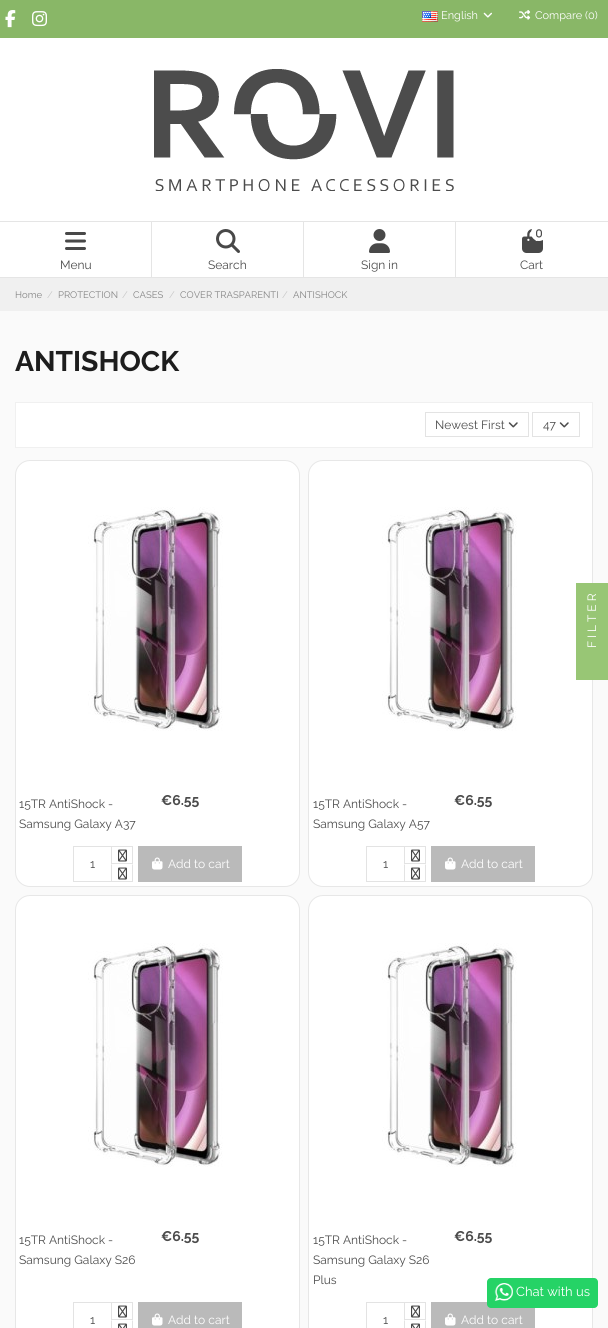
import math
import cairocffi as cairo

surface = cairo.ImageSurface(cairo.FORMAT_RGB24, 608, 1328)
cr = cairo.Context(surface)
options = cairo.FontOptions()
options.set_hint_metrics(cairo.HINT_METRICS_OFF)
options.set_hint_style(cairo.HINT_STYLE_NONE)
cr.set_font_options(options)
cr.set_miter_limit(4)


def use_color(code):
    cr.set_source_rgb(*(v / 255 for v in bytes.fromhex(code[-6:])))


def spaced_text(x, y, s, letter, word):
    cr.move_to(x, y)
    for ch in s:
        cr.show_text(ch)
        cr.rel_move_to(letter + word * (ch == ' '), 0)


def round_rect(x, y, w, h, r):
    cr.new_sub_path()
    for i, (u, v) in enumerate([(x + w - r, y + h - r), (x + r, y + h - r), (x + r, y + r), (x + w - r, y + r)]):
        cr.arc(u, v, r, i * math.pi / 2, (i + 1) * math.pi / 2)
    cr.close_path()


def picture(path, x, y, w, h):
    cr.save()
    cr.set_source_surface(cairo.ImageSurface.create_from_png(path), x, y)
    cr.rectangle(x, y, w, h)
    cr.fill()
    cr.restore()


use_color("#fafafa")
cr.paint()
use_color("#ffffff")
cr.rectangle(0, 38, 608, 240)
cr.fill()
use_color("#89b767")
cr.rectangle(0, 0, 608, 38)
cr.fill()
picture("img1.png", 5, 10, 11, 18)
picture("img2.png", 32, 11, 15, 16)
picture("img3.png", 422, 11, 16, 11)
cr.select_font_face("Raleway")
cr.set_font_size(11)
use_color("#ffffff")
cr.move_to(441, 19)
cr.show_text("English")
picture("img4.png", 483, 12, 9, 6)
picture("img5.png", 519, 10, 12, 10)
cr.move_to(535, 19)
cr.show_text("Compare (0)")
picture("img6.png", 154, 69, 300, 122)
use_color("#e5e5e5")
cr.new_path()
cr.move_to(0, 221)
cr.line_to(152, 221)
cr.line_to(151, 222)
cr.line_to(0, 222)
cr.close_path()
cr.fill()
cr.set_source_rgba(0.082, 0.082, 0.082, 0.11)
cr.new_path()
cr.move_to(152, 221)
cr.line_to(152, 278)
cr.line_to(151, 277)
cr.line_to(151, 222)
cr.close_path()
cr.fill()
cr.new_path()
cr.move_to(152, 278)
cr.line_to(0, 278)
cr.line_to(0, 277)
cr.line_to(151, 277)
cr.close_path()
cr.fill()
picture("img7.png", 65, 232, 21, 18)
cr.set_font_size(12)
use_color("#4c4c4c")
cr.move_to(60, 269)
cr.show_text("Menu")
use_color("#e5e5e5")
cr.new_path()
cr.move_to(152, 221)
cr.line_to(304, 221)
cr.line_to(303, 222)
cr.line_to(152, 222)
cr.close_path()
cr.fill()
cr.set_source_rgba(0.082, 0.082, 0.082, 0.11)
cr.new_path()
cr.move_to(304, 221)
cr.line_to(304, 278)
cr.line_to(303, 277)
cr.line_to(303, 222)
cr.close_path()
cr.fill()
cr.new_path()
cr.move_to(304, 278)
cr.line_to(152, 278)
cr.line_to(152, 277)
cr.line_to(303, 277)
cr.close_path()
cr.fill()
picture("img8.png", 216, 229, 24, 24)
use_color("#4c4c4c")
cr.move_to(208, 269)
cr.show_text("Search")
use_color("#e5e5e5")
cr.new_path()
cr.move_to(304, 221)
cr.line_to(456, 221)
cr.line_to(455, 222)
cr.line_to(304, 222)
cr.close_path()
cr.fill()
cr.set_source_rgba(0.082, 0.082, 0.082, 0.11)
cr.new_path()
cr.move_to(456, 221)
cr.line_to(456, 278)
cr.line_to(455, 277)
cr.line_to(455, 222)
cr.close_path()
cr.fill()
cr.new_path()
cr.move_to(456, 278)
cr.line_to(304, 278)
cr.line_to(304, 277)
cr.line_to(455, 277)
cr.close_path()
cr.fill()
picture("img9.png", 369, 229, 21, 24)
use_color("#4c4c4c")
cr.move_to(361, 269)
cr.show_text("Sign in")
use_color("#e5e5e5")
cr.rectangle(456, 221, 152, 1)
cr.fill()
cr.rectangle(456, 277, 152, 1)
cr.fill()
picture("img11.png", 522, 229, 21, 24)
use_color("#ffffff")
cr.arc(539, 233, 8, 0, 2 * math.pi)
cr.fill()
picture("img10.png", 536, 229, 6, 9)
use_color("#4c4c4c")
cr.move_to(520, 269)
cr.show_text("Cart")
use_color("#f0f0f0")
cr.rectangle(0, 278, 608, 33)
cr.fill()
cr.set_font_size(9.5)
use_color("#858585")
cr.move_to(15, 298)
cr.show_text("Home")
use_color("#c5c5c5")
cr.move_to(47, 298)
cr.show_text("/")
use_color("#858585")
cr.move_to(58, 298)
cr.show_text("PROTECTION")
use_color("#c5c5c5")
cr.move_to(122, 298)
cr.show_text("/")
use_color("#858585")
cr.move_to(133, 298)
cr.show_text("CASES")
use_color("#c5c5c5")
cr.move_to(169, 298)
cr.show_text("/")
use_color("#858585")
cr.move_to(180, 298)
cr.show_text("COVER TRASPARENTI")
use_color("#c5c5c5")
cr.move_to(282, 298)
cr.show_text("/")
use_color("#858585")
cr.move_to(293, 298)
cr.show_text("ANTISHOCK")
cr.select_font_face("Raleway", cairo.FONT_SLANT_NORMAL, cairo.FONT_WEIGHT_BOLD)
cr.set_font_size(28.25)
use_color("#1d1d1d")
cr.move_to(15, 371)
cr.show_text("ANTISHOCK")
use_color("#ffffff")
cr.rectangle(15.5, 402.5, 577, 45)
cr.fill_preserve()
use_color("#f0f0f0")
cr.set_line_width(1)
cr.stroke()
cr.rectangle(425.5, 412.5, 103, 24)
use_color("#e3e3e3")
cr.stroke()
cr.select_font_face("Raleway")
cr.set_font_size(12)
use_color("#4c4c4c")
cr.move_to(435, 429)
cr.show_text("Newest First")
picture("img12.png", 508, 422, 10, 6)
cr.rectangle(532.5, 412.5, 47, 24)
use_color("#e3e3e3")
cr.stroke()
use_color("#4c4c4c")
cr.move_to(543, 429)
cr.show_text("47")
picture("img12.png", 559, 422, 10, 6)
use_color("#ffffff")
round_rect(15.5, 460.5, 284, 426, 14.5)
cr.fill_preserve()
use_color("#e7e7e7")
cr.stroke()
picture("img13.png", 88, 507, 135, 224)
use_color("#4c4c4c")
cr.move_to(19, 808)
cr.show_text("15TR AntiShock -")
cr.move_to(19, 828)
cr.show_text("Samsung Galaxy A37")
cr.select_font_face("Raleway", cairo.FONT_SLANT_NORMAL, cairo.FONT_WEIGHT_BOLD)
cr.set_font_size(14)
cr.move_to(161, 805)
cr.show_text("€6.55")
cr.rectangle(73.5, 846.5, 38, 35)
use_color("#e3e3e3")
cr.stroke()
cr.select_font_face("Raleway")
cr.set_font_size(12)
use_color("#4c4c4c")
cr.move_to(90, 868)
cr.show_text("1")
cr.rectangle(111.5, 846.5, 21, 17)
use_color("#e3e3e3")
cr.stroke()
picture("img14.png", 118, 849, 9, 13)
use_color("#ffffff")
cr.rectangle(111, 864, 1, 17)
cr.fill()
use_color("#e3e3e3")
cr.new_path()
cr.move_to(133, 864)
cr.line_to(133, 882)
cr.line_to(132, 881)
cr.line_to(132, 865)
cr.close_path()
cr.fill()
cr.rectangle(111, 881, 22, 1)
cr.fill()
cr.new_path()
cr.move_to(111, 882)
cr.line_to(111, 864)
cr.line_to(112, 865)
cr.line_to(112, 881)
cr.close_path()
cr.fill()
picture("img14.png", 118, 867, 9, 13)
use_color("#bababa")
cr.rectangle(138, 846, 104, 36)
cr.fill()
picture("img15.png", 152, 857, 11, 13)
use_color("#ffffff")
cr.move_to(168, 868)
cr.show_text("Add to cart")
round_rect(308.5, 460.5, 284, 426, 14.5)
cr.fill_preserve()
use_color("#e7e7e7")
cr.stroke()
picture("img13.png", 382, 507, 135, 224)
use_color("#4c4c4c")
cr.move_to(313, 808)
cr.show_text("15TR AntiShock -")
cr.move_to(313, 828)
cr.show_text("Samsung Galaxy A57")
cr.select_font_face("Raleway", cairo.FONT_SLANT_NORMAL, cairo.FONT_WEIGHT_BOLD)
cr.set_font_size(14)
cr.move_to(454, 805)
cr.show_text("€6.55")
cr.rectangle(366.5, 846.5, 38, 35)
use_color("#e3e3e3")
cr.stroke()
cr.select_font_face("Raleway")
cr.set_font_size(12)
use_color("#4c4c4c")
cr.move_to(383, 868)
cr.show_text("1")
cr.rectangle(404.5, 846.5, 21, 17)
use_color("#e3e3e3")
cr.stroke()
picture("img14.png", 411, 849, 9, 13)
use_color("#ffffff")
cr.rectangle(404, 864, 1, 17)
cr.fill()
use_color("#e3e3e3")
cr.new_path()
cr.move_to(426, 864)
cr.line_to(426, 882)
cr.line_to(425, 881)
cr.line_to(425, 865)
cr.close_path()
cr.fill()
cr.rectangle(404, 881, 22, 1)
cr.fill()
cr.new_path()
cr.move_to(404, 882)
cr.line_to(404, 864)
cr.line_to(405, 865)
cr.line_to(405, 881)
cr.close_path()
cr.fill()
picture("img14.png", 411, 867, 9, 13)
use_color("#bababa")
cr.rectangle(431, 846, 104, 36)
cr.fill()
picture("img15.png", 445, 857, 11, 13)
use_color("#ffffff")
cr.move_to(461, 868)
cr.show_text("Add to cart")
round_rect(15.5, 895.5, 284, 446, 14.5)
cr.fill_preserve()
use_color("#e7e7e7")
cr.stroke()
picture("img13.png", 88, 943, 135, 224)
use_color("#4c4c4c")
cr.move_to(19, 1244)
cr.show_text("15TR AntiShock -")
cr.move_to(19, 1264)
cr.show_text("Samsung Galaxy S26")
cr.select_font_face("Raleway", cairo.FONT_SLANT_NORMAL, cairo.FONT_WEIGHT_BOLD)
cr.set_font_size(14)
cr.move_to(161, 1241)
cr.show_text("€6.55")
cr.rectangle(73.5, 1302.5, 38, 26)
use_color("#e3e3e3")
cr.stroke()
cr.select_font_face("Raleway")
cr.set_font_size(12)
use_color("#4c4c4c")
cr.move_to(90, 1324)
cr.show_text("1")
cr.rectangle(111.5, 1302.5, 21, 17)
use_color("#e3e3e3")
cr.stroke()
picture("img14.png", 118, 1305, 9, 13)
use_color("#ffffff")
cr.rectangle(111, 1320, 1, 8)
cr.fill()
use_color("#e3e3e3")
cr.new_path()
cr.move_to(133, 1320)
cr.line_to(133, 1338)
cr.line_to(132, 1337)
cr.line_to(132, 1321)
cr.close_path()
cr.move_to(111, 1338)
cr.line_to(111, 1320)
cr.line_to(112, 1321)
cr.line_to(112, 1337)
cr.close_path()
cr.fill()
picture("img16.png", 118, 1323, 9, 5)
use_color("#bababa")
cr.rectangle(138, 1302, 104, 26)
cr.fill()
picture("img15.png", 152, 1313, 11, 13)
use_color("#ffffff")
cr.move_to(168, 1324)
cr.show_text("Add to cart")
round_rect(308.5, 895.5, 284, 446, 14.5)
cr.fill_preserve()
use_color("#e7e7e7")
cr.stroke()
picture("img13.png", 382, 943, 135, 224)
use_color("#4c4c4c")
cr.move_to(313, 1244)
cr.show_text("15TR AntiShock -")
cr.move_to(313, 1264)
cr.show_text("Samsung Galaxy S26")
cr.move_to(313, 1284)
cr.show_text("Plus")
cr.select_font_face("Raleway", cairo.FONT_SLANT_NORMAL, cairo.FONT_WEIGHT_BOLD)
cr.set_font_size(14)
cr.move_to(454, 1241)
cr.show_text("€6.55")
cr.rectangle(366.5, 1302.5, 38, 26)
use_color("#e3e3e3")
cr.stroke()
cr.select_font_face("Raleway")
cr.set_font_size(12)
use_color("#4c4c4c")
cr.move_to(383, 1324)
cr.show_text("1")
cr.rectangle(404.5, 1302.5, 21, 17)
use_color("#e3e3e3")
cr.stroke()
picture("img14.png", 411, 1305, 9, 13)
use_color("#ffffff")
cr.rectangle(404, 1320, 1, 8)
cr.fill()
use_color("#e3e3e3")
cr.new_path()
cr.move_to(426, 1320)
cr.line_to(426, 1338)
cr.line_to(425, 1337)
cr.line_to(425, 1321)
cr.close_path()
cr.move_to(404, 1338)
cr.line_to(404, 1320)
cr.line_to(405, 1321)
cr.line_to(405, 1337)
cr.close_path()
cr.fill()
picture("img16.png", 411, 1323, 9, 5)
use_color("#bababa")
cr.rectangle(431, 1302, 104, 26)
cr.fill()
picture("img15.png", 445, 1313, 11, 13)
use_color("#ffffff")
cr.move_to(461, 1324)
cr.show_text("Add to cart")
use_color("#98c675")
cr.rectangle(576, 583, 32, 97)
cr.fill()
use_color("#ffffff")
cr.save()
cr.translate(596, 648)
cr.rotate(-90 * math.pi / 180)
spaced_text(0, 0, "FILTER", 3, 0)
cr.restore()
use_color("#25d366")
round_rect(487, 1278, 111, 30, 4)
cr.fill()
picture("img17.png", 494, 1283, 19, 18)
cr.set_font_size(13)
use_color("#ffffff")
cr.move_to(516, 1296)
cr.show_text("Chat with us")
surface.write_to_png("result.png")
